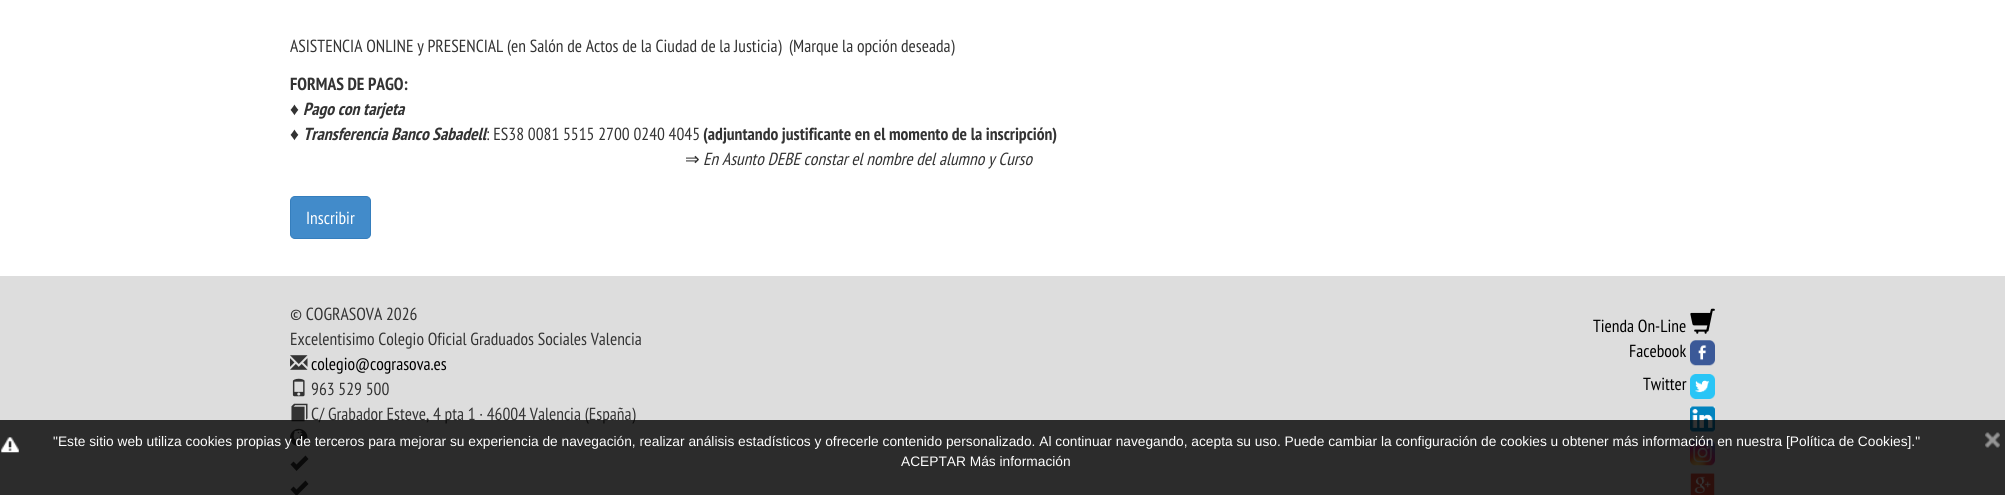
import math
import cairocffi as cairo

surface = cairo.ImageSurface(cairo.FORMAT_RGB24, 2005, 495)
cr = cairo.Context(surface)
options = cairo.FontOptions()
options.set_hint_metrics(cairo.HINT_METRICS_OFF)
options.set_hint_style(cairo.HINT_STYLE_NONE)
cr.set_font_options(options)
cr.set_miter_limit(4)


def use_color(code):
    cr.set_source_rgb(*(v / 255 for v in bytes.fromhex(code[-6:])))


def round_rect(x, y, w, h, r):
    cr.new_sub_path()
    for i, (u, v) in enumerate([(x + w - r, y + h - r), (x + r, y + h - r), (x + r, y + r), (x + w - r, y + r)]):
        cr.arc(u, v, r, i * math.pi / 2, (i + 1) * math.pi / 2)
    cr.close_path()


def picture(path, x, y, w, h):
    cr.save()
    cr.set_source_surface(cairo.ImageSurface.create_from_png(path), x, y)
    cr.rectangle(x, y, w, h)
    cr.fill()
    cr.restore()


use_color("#ffffff")
cr.paint()
cr.select_font_face("PT Sans Narrow")
cr.set_font_size(17.5)
use_color("#333333")
cr.move_to(290, 52)
cr.show_text("ASISTENCIA ONLINE y PRESENCIAL (en Salón de Actos de la Ciudad de la Justicia)  (Marque la opción deseada)")
cr.select_font_face("PT Sans Narrow", cairo.FONT_SLANT_NORMAL, cairo.FONT_WEIGHT_BOLD)
cr.move_to(290, 90)
cr.show_text("FORMAS DE PAGO:")
cr.select_font_face("Liberation Sans", cairo.FONT_SLANT_ITALIC, cairo.FONT_WEIGHT_BOLD)
cr.move_to(290, 115)
cr.show_text("♦")
cr.select_font_face("PT Sans Narrow", cairo.FONT_SLANT_ITALIC, cairo.FONT_WEIGHT_BOLD)
cr.move_to(303, 115)
cr.show_text("Pago con tarjeta")
cr.select_font_face("Liberation Sans", cairo.FONT_SLANT_ITALIC, cairo.FONT_WEIGHT_BOLD)
cr.move_to(290, 140)
cr.show_text("♦")
cr.select_font_face("PT Sans Narrow", cairo.FONT_SLANT_ITALIC, cairo.FONT_WEIGHT_BOLD)
cr.move_to(303, 140)
cr.show_text("Transferencia Banco Sabadell")
cr.select_font_face("PT Sans Narrow")
cr.move_to(486, 140)
cr.show_text(": ES38 0081 5515 2700 0240 4045")
cr.select_font_face("PT Sans Narrow", cairo.FONT_SLANT_NORMAL, cairo.FONT_WEIGHT_BOLD)
cr.move_to(703, 140)
cr.show_text("(adjuntando justificante en el momento de la inscripción)")
cr.select_font_face("DejaVu Sans")
cr.move_to(685, 165)
cr.show_text("⇒")
cr.select_font_face("PT Sans Narrow", cairo.FONT_SLANT_ITALIC)
cr.move_to(703, 165)
cr.show_text("En Asunto DEBE constar el nombre del alumno y Curso")
use_color("#428bca")
round_rect(290.5, 196.5, 80, 42, 4.5)
cr.fill_preserve()
use_color("#357ebd")
cr.set_line_width(1)
cr.stroke()
cr.select_font_face("PT Sans Narrow")
use_color("#ffffff")
cr.move_to(306, 224)
cr.show_text("Inscribir")
use_color("#dddddd")
cr.rectangle(0, 276, 2005, 219)
cr.fill()
use_color("#333333")
cr.move_to(290, 320)
cr.show_text("© COGRASOVA 2026")
cr.move_to(290, 345)
cr.show_text("Excelentisimo Colegio Oficial Graduados Sociales Valencia")
picture("img1.png", 290, 355, 18, 15)
use_color("#000000")
cr.move_to(311, 370)
cr.show_text("colegio@cograsova.es")
picture("img2.png", 292, 378, 13, 19)
use_color("#333333")
cr.move_to(311, 395)
cr.show_text("963 529 500")
picture("img3.png", 291, 403, 17, 19)
cr.move_to(311, 420)
cr.show_text("C/ Grabador Esteve, 4 pta 1 · 46004 Valencia (España)")
picture("img4.png", 290, 428, 18, 19)
cr.new_path()
cr.move_to(290.5, 464.5)
cr.line_to(296.5, 471)
cr.line_to(308.5, 459)
cr.line_to(305.5, 455.5)
cr.line_to(296.5, 464.5)
cr.line_to(293.5, 461.5)
cr.close_path()
cr.move_to(290.5, 489.5)
cr.line_to(296.5, 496)
cr.line_to(308.5, 484)
cr.line_to(305.5, 480.5)
cr.line_to(296.5, 489.5)
cr.line_to(293.5, 486.5)
cr.close_path()
cr.fill()
use_color("#000000")
cr.move_to(1593, 332)
cr.show_text("Tienda On-Line")
picture("img5.png", 1690, 308, 25, 26)
cr.move_to(1629, 357)
cr.show_text("Facebook")
picture("img6.png", 1690, 340, 25, 26)
cr.move_to(1643, 390)
cr.show_text("Twitter")
picture("img7.png", 1690, 374, 25, 25)
picture("img8.png", 1690, 406, 25, 26)
picture("img9.png", 1690, 440, 25, 26)
picture("img10.png", 1690, 473, 25, 22)
cr.set_source_rgba(0, 0, 0, 0.8)
cr.rectangle(0, 420, 2005, 75)
cr.fill()
picture("img11.png", 1, 437, 18, 16)
cr.select_font_face("Liberation Sans")
cr.set_font_size(13.75)
use_color("#ffffff")
cr.move_to(53, 446)
cr.show_text("\"Este sitio web utiliza cookies propias y de terceros para mejorar su experiencia de navegación, realizar análisis estadísticos y ofrecerle contenido personalizado. Al continuar navegando, acepta su uso. Puede cambiar la configuración de cookies u obtener más información en nuestra [Política de Cookies].\"")
picture("img12.png", 1985, 432, 15, 16)
cr.move_to(901, 466)
cr.show_text("ACEPTAR Más información")
surface.write_to_png("result.png")
